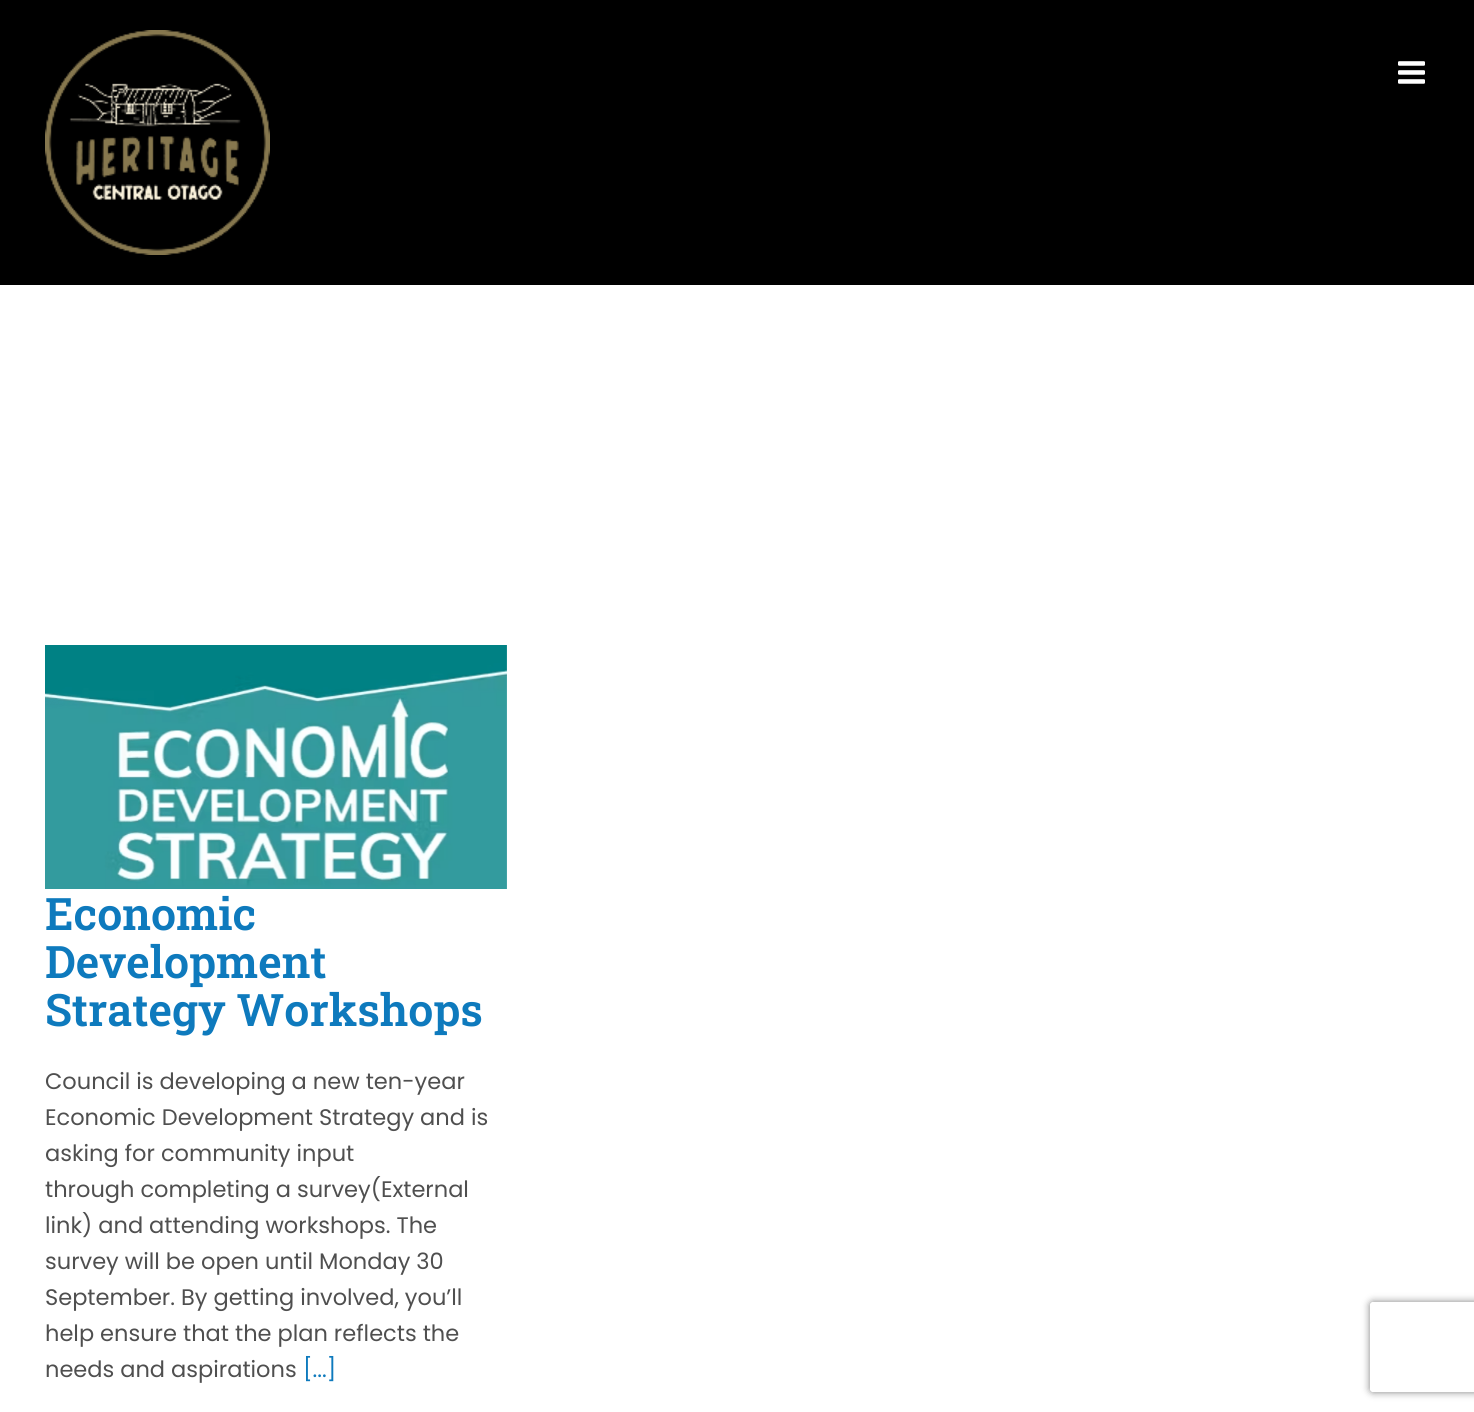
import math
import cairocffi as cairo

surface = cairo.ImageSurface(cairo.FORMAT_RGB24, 1474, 1412)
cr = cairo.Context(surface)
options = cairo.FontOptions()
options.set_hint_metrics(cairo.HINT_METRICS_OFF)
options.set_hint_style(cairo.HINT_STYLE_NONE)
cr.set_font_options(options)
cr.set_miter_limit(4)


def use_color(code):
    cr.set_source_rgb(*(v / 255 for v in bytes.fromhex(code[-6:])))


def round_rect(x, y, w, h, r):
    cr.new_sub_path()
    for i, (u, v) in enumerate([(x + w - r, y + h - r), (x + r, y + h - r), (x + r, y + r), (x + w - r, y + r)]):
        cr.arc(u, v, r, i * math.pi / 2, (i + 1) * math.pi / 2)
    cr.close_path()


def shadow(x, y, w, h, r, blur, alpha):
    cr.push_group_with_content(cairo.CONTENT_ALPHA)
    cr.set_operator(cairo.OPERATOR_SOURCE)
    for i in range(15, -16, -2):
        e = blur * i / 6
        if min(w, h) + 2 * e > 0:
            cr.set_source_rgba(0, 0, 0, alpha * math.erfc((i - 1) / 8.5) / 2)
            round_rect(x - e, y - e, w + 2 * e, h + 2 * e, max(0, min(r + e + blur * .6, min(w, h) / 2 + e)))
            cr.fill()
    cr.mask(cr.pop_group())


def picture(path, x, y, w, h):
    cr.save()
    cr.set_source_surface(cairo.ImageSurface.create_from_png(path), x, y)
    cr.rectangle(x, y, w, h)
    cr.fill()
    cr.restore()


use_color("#ffffff")
cr.paint()
use_color("#000000")
cr.rectangle(0, 0, 1474, 285)
cr.fill()
picture("img1.png", 45, 30, 225, 225)
picture("img2.png", 1398, 61, 27, 23)
picture("img3.png", 45, 645, 462, 244)
cr.select_font_face("Roboto Slab SemiBold")
cr.set_font_size(44.75)
use_color("#0e7abd")
cr.move_to(45, 930)
cr.show_text("Economic")
cr.move_to(45, 978)
cr.show_text("Development")
cr.move_to(45, 1026)
cr.show_text("Strategy Workshops")
cr.select_font_face("Poppins")
cr.set_font_size(22.5)
use_color("#4f4f4f")
cr.move_to(45, 1089)
cr.show_text("Council is developing a new ten-year")
cr.move_to(45, 1125)
cr.show_text("Economic Development Strategy and is")
cr.move_to(45, 1161)
cr.show_text("asking for community input")
cr.move_to(45, 1197)
cr.show_text("through completing a survey(External")
cr.move_to(45, 1233)
cr.show_text("link) and attending workshops. The")
cr.move_to(45, 1269)
cr.show_text("survey will be open until Monday 30")
cr.move_to(45, 1305)
cr.show_text("September. By getting involved, you’ll")
cr.move_to(45, 1341)
cr.show_text("help ensure that the plan reflects the")
cr.move_to(45, 1377)
cr.show_text("needs and aspirations")
use_color("#0e7abd")
cr.move_to(303, 1377)
cr.show_text("[...]")
cr.save()
cr.set_fill_rule(cairo.FILL_RULE_EVEN_ODD)
cr.new_path()
cr.move_to(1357, 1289)
cr.line_to(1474, 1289)
cr.line_to(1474, 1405)
cr.line_to(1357, 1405)
cr.close_path()
cr.move_to(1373, 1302)
cr.line_to(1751, 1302)
cr.curve_to(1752.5, 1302, 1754, 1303.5, 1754, 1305)
cr.line_to(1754, 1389)
cr.curve_to(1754, 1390.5, 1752.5, 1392, 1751, 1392)
cr.line_to(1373, 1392)
cr.curve_to(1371.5, 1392, 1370, 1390.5, 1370, 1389)
cr.line_to(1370, 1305)
cr.curve_to(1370, 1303.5, 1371.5, 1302, 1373, 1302)
cr.close_path()
cr.clip()
use_color("#808080")
shadow(1370, 1302, 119, 90, 3, 4, 1)
cr.restore()
surface.write_to_png("result.png")
